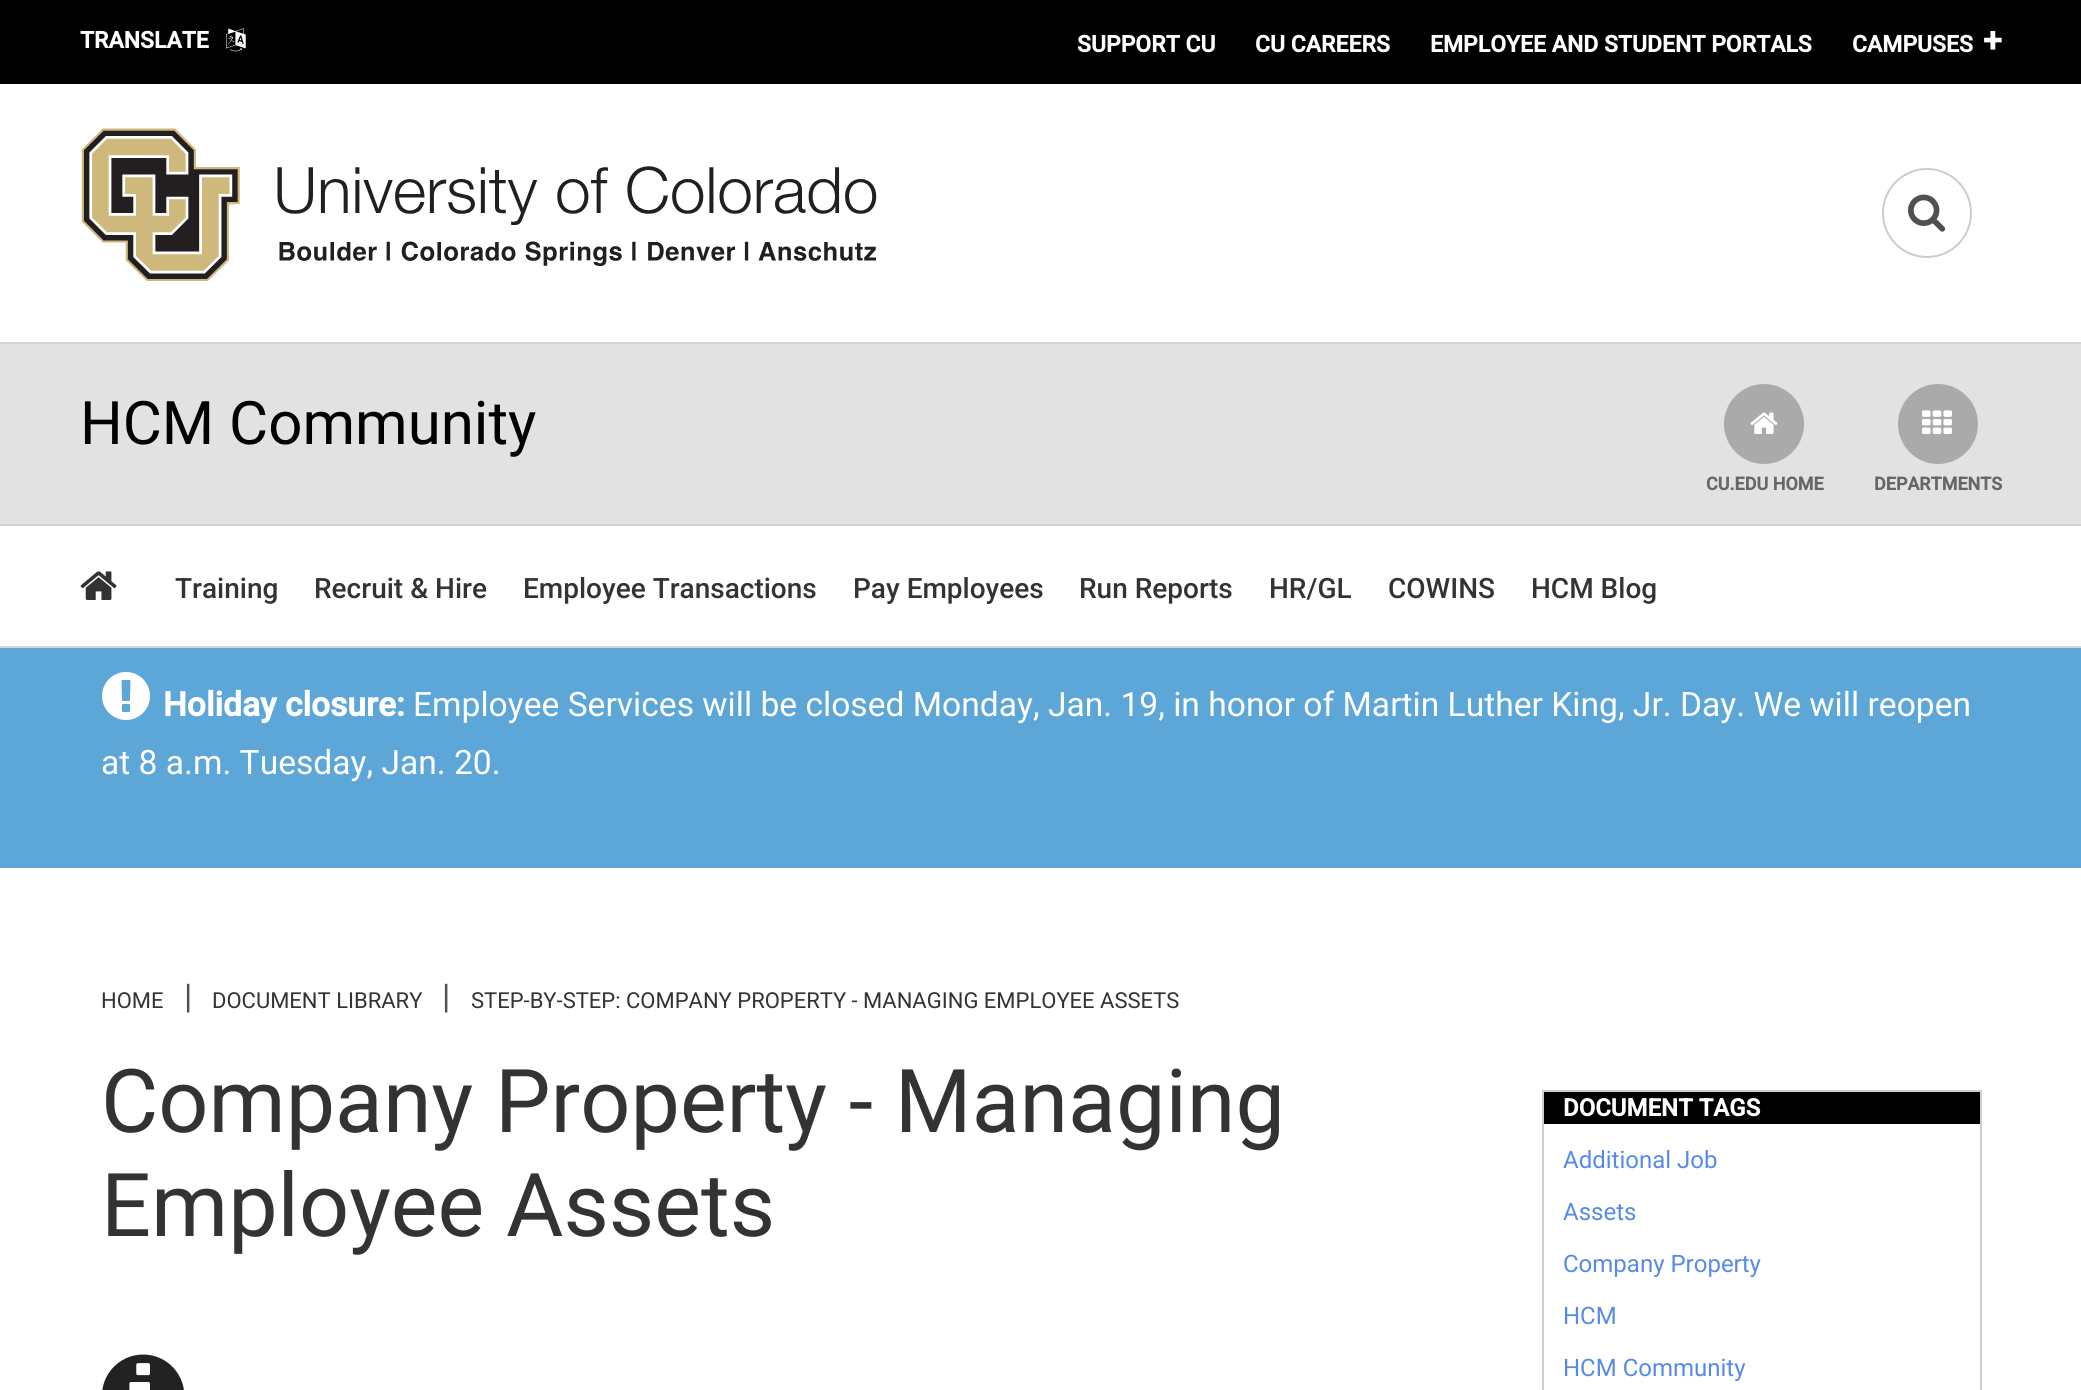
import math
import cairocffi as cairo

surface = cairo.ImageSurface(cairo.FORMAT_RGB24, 2081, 1390)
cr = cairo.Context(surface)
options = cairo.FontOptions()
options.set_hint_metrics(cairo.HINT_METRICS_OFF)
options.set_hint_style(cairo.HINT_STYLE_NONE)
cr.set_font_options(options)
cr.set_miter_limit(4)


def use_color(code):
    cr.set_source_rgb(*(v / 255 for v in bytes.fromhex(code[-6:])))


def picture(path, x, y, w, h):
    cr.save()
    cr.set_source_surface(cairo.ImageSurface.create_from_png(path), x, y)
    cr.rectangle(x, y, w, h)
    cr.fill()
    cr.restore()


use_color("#ffffff")
cr.paint()
use_color("#000000")
cr.rectangle(0, 0, 2081, 84)
cr.fill()
cr.select_font_face("Roboto", cairo.FONT_SLANT_NORMAL, cairo.FONT_WEIGHT_BOLD)
cr.set_font_size(23)
use_color("#ffffff")
cr.move_to(80, 48)
cr.show_text("TRANSLATE")
picture("img1.png", 226, 28, 20, 24)
cr.move_to(1077, 52)
cr.show_text("SUPPORT CU")
cr.move_to(1255, 52)
cr.show_text("CU CAREERS")
cr.move_to(1430, 52)
cr.show_text("EMPLOYEE AND STUDENT PORTALS")
cr.move_to(1852, 52)
cr.show_text("CAMPUSES")
cr.set_font_size(34)
cr.move_to(1983, 52)
cr.show_text("+")
picture("img2.png", 81, 128, 796, 153)
cr.arc(1927, 213, 44, 0, 2 * math.pi)
use_color("#cccccc")
cr.stroke()
picture("img3.png", 1908, 194, 38, 38)
use_color("#e2e2e2")
cr.rectangle(0, 344, 2081, 180)
cr.fill()
use_color("#d2d2d2")
cr.rectangle(0, 342, 2081, 2)
cr.fill()
cr.select_font_face("Roboto")
cr.set_font_size(60)
use_color("#000000")
cr.move_to(80, 444)
cr.show_text("HCM Community")
use_color("#aaaaaa")
cr.new_path()
cr.arc(1764, 424, 40, 0, 2 * math.pi)
cr.fill()
picture("img4.png", 1750, 412, 28, 22)
cr.select_font_face("Roboto", cairo.FONT_SLANT_NORMAL, cairo.FONT_WEIGHT_BOLD)
cr.set_font_size(18)
use_color("#666666")
cr.move_to(1706, 490)
cr.show_text("CU.EDU HOME")
use_color("#aaaaaa")
cr.new_path()
cr.arc(1938, 424, 40, 0, 2 * math.pi)
cr.fill()
picture("img5.png", 1922, 410, 30, 24)
use_color("#666666")
cr.move_to(1874, 490)
cr.show_text("DEPARTMENTS")
use_color("#d2d3d4")
cr.rectangle(0, 524, 2081, 2)
cr.fill()
cr.rectangle(0, 646, 2081, 2)
cr.fill()
picture("img6.png", 80, 571, 37, 29)
cr.select_font_face("Roboto Medium")
cr.set_font_size(28)
use_color("#333333")
cr.move_to(175, 598)
cr.show_text("Training")
cr.move_to(314, 598)
cr.show_text("Recruit & Hire")
cr.move_to(523, 598)
cr.show_text("Employee Transactions")
cr.move_to(853, 598)
cr.show_text("Pay Employees")
cr.move_to(1079, 598)
cr.show_text("Run Reports")
cr.move_to(1269, 598)
cr.show_text("HR/GL")
cr.move_to(1388, 598)
cr.show_text("COWINS")
cr.move_to(1531, 598)
cr.show_text("HCM Blog")
use_color("#5ca7d7")
cr.rectangle(0, 648, 2081, 220)
cr.fill()
picture("img7.png", 102, 672, 48, 48)
cr.select_font_face("Roboto", cairo.FONT_SLANT_NORMAL, cairo.FONT_WEIGHT_BOLD)
cr.set_font_size(33.6)
use_color("#ffffff")
cr.move_to(163, 716)
cr.show_text("Holiday closure:")
cr.select_font_face("Roboto")
cr.move_to(413, 716)
cr.show_text("Employee Services will be closed Monday, Jan. 19, in honor of Martin Luther King, Jr. Day. We will reopen")
cr.move_to(101, 774)
cr.show_text("at 8 a.m. Tuesday, Jan. 20.")
cr.set_font_size(22)
use_color("#333333")
cr.move_to(101, 1008)
cr.show_text("HOME")
cr.set_font_size(34)
use_color("#505050")
cr.move_to(184, 1008)
cr.show_text("|")
cr.set_font_size(22)
use_color("#333333")
cr.move_to(212, 1008)
cr.show_text("DOCUMENT LIBRARY")
cr.set_font_size(34)
use_color("#505050")
cr.move_to(442, 1008)
cr.show_text("|")
cr.set_font_size(22)
use_color("#333333")
cr.move_to(471, 1008)
cr.show_text("STEP-BY-STEP: COMPANY PROPERTY - MANAGING EMPLOYEE ASSETS")
cr.set_font_size(88)
cr.move_to(101, 1132)
cr.show_text("Company Property - Managing")
cr.move_to(101, 1236)
cr.show_text("Employee Assets")
picture("img8.png", 102, 1354, 82, 36)
cr.rectangle(1543, 1091, 438, 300)
use_color("#cfcfcf")
cr.stroke()
use_color("#000000")
cr.rectangle(1544, 1092, 436, 32)
cr.fill()
cr.select_font_face("Roboto", cairo.FONT_SLANT_NORMAL, cairo.FONT_WEIGHT_BOLD)
cr.set_font_size(24)
use_color("#ffffff")
cr.move_to(1563, 1116)
cr.show_text("DOCUMENT TAGS")
cr.select_font_face("Roboto")
use_color("#578ae8")
cr.move_to(1563, 1168)
cr.show_text("Additional Job")
cr.move_to(1563, 1220)
cr.show_text("Assets")
cr.move_to(1563, 1272)
cr.show_text("Company Property")
cr.move_to(1563, 1324)
cr.show_text("HCM")
cr.move_to(1563, 1376)
cr.show_text("HCM Community")
surface.write_to_png("result.png")
